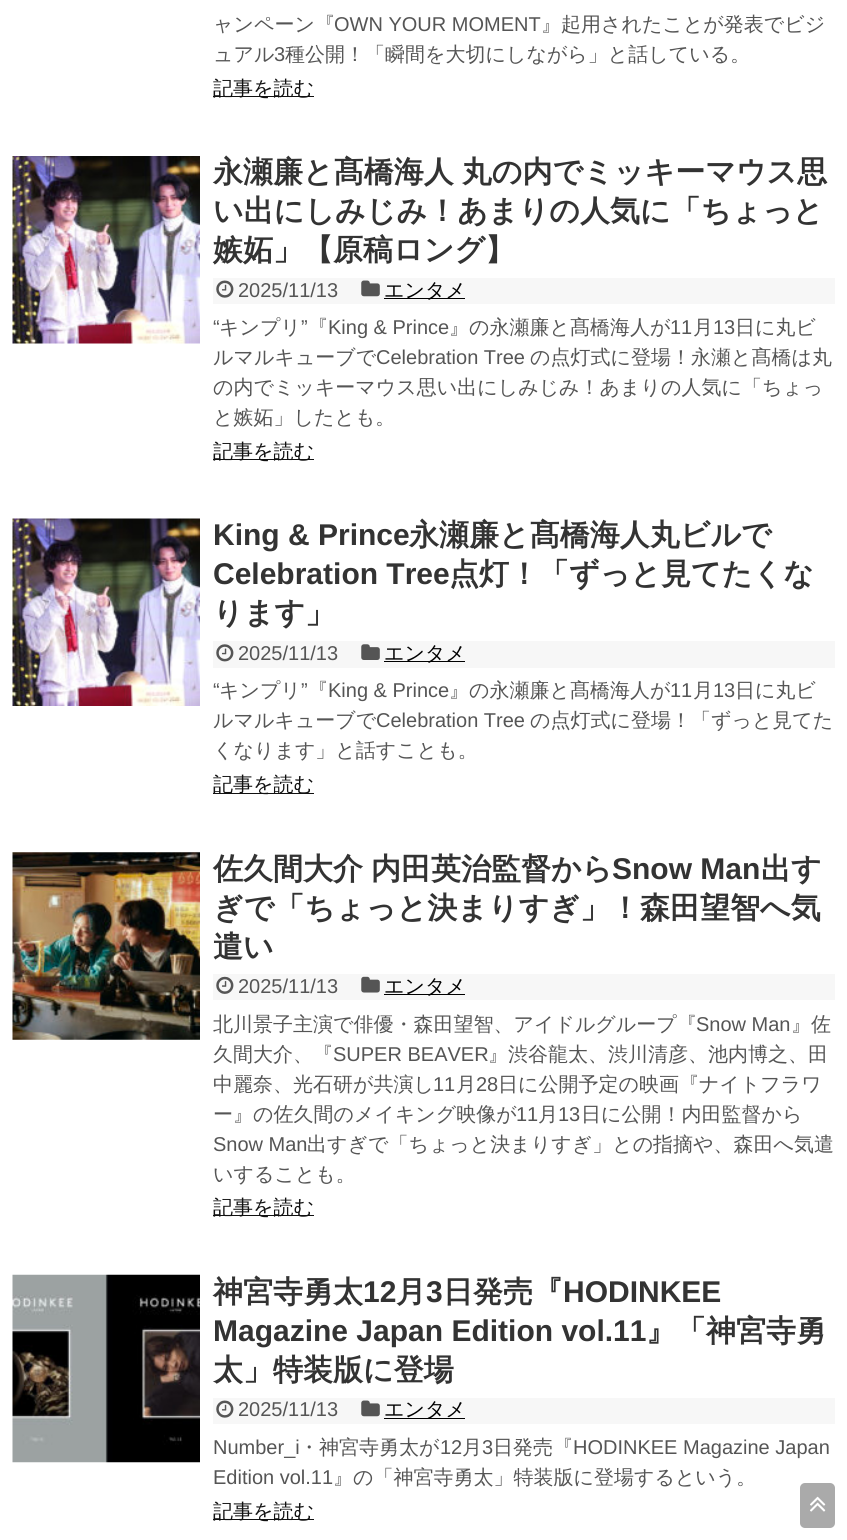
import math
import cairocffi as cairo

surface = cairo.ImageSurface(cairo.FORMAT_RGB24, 847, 1540)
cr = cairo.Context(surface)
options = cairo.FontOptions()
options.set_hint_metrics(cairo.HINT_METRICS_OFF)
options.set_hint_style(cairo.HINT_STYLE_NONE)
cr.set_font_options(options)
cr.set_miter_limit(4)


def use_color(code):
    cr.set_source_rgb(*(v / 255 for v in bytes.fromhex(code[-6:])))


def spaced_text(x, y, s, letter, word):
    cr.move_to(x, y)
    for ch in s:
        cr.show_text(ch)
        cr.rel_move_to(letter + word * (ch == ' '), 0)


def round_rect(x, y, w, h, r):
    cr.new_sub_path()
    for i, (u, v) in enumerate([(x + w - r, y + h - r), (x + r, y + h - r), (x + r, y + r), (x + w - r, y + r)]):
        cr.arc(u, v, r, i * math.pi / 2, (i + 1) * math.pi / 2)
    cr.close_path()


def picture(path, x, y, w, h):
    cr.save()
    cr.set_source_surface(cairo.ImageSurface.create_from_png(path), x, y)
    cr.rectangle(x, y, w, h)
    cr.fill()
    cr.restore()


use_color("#ffffff")
cr.paint()
cr.select_font_face("WenQuanYi Zen Hei Medium")
cr.set_font_size(20)
use_color("#555555")
cr.move_to(213, 31)
cr.show_text("ャンペーン『")
cr.select_font_face("Liberation Sans")
cr.move_to(334, 31)
cr.show_text("OWN YOUR MOMENT")
cr.select_font_face("WenQuanYi Zen Hei Medium")
cr.move_to(541, 31)
cr.show_text("』起用されたことが発表でビジ")
cr.move_to(213, 61)
cr.show_text("ュアル")
cr.select_font_face("Liberation Sans")
cr.move_to(274, 61)
cr.show_text("3")
cr.select_font_face("WenQuanYi Zen Hei Medium")
cr.move_to(285, 61)
cr.show_text("種公開！「瞬間を大切にしながら」と話している。")
use_color("#111111")
cr.rectangle(213, 96, 101, 1)
cr.fill()
cr.move_to(213, 95)
cr.show_text("記事を読む")
picture("img1.png", 12, 156, 188, 188)
cr.select_font_face("WenQuanYi Zen Hei", cairo.FONT_SLANT_NORMAL, cairo.FONT_WEIGHT_BOLD)
cr.set_font_size(30)
use_color("#333333")
spaced_text(213, 182, "永瀬廉と髙橋海人 丸の内でミッキーマウス思", 0, -1)
cr.move_to(213, 221)
cr.show_text("い出にしみじみ！あまりの人気に「ちょっと")
cr.move_to(213, 260)
cr.show_text("嫉妬」【原稿ロング】")
use_color("#f7f7f7")
cr.rectangle(213, 278, 622, 26)
cr.fill()
picture("img2.png", 216, 280, 18, 18)
cr.select_font_face("Liberation Sans")
cr.set_font_size(20)
use_color("#555555")
cr.move_to(238, 297)
cr.show_text("2025/11/13")
picture("img3.png", 361, 280, 19, 17)
use_color("#000000")
cr.rectangle(384, 298, 81, 1)
cr.fill()
cr.select_font_face("WenQuanYi Zen Hei Medium")
cr.move_to(384, 297)
cr.show_text("エンタメ")
cr.select_font_face("Liberation Sans")
use_color("#555555")
cr.move_to(213, 334)
cr.show_text("“")
cr.select_font_face("WenQuanYi Zen Hei Medium")
cr.move_to(219, 334)
cr.show_text("キンプリ")
cr.select_font_face("Liberation Sans")
cr.move_to(301, 334)
cr.show_text("”")
cr.select_font_face("WenQuanYi Zen Hei Medium")
cr.move_to(308, 334)
cr.show_text("『")
cr.select_font_face("Liberation Sans")
cr.move_to(328, 334)
cr.show_text("King & Prince")
cr.select_font_face("WenQuanYi Zen Hei Medium")
cr.move_to(449, 334)
cr.show_text("』の永瀬廉と髙橋海人が")
cr.select_font_face("Liberation Sans")
cr.move_to(670, 334)
cr.show_text("11")
cr.select_font_face("WenQuanYi Zen Hei Medium")
cr.move_to(693, 334)
cr.show_text("月")
cr.select_font_face("Liberation Sans")
cr.move_to(713, 334)
cr.show_text("13")
cr.select_font_face("WenQuanYi Zen Hei Medium")
cr.move_to(735, 334)
cr.show_text("日に丸ビ")
cr.move_to(213, 364)
cr.show_text("ルマルキューブで")
cr.select_font_face("Liberation Sans")
cr.move_to(376, 364)
cr.show_text("Celebration Tree")
cr.select_font_face("WenQuanYi Zen Hei Medium")
cr.move_to(530, 364)
cr.show_text("の点灯式に登場！永瀬と髙橋は丸")
cr.move_to(213, 394)
cr.show_text("の内でミッキーマウス思い出にしみじみ！あまりの人気に「ちょっ")
cr.move_to(213, 424)
cr.show_text("と嫉妬」したとも。")
use_color("#111111")
cr.rectangle(213, 459, 101, 1)
cr.fill()
cr.move_to(213, 458)
cr.show_text("記事を読む")
picture("img4.png", 12, 518, 188, 188)
cr.select_font_face("Liberation Sans", cairo.FONT_SLANT_NORMAL, cairo.FONT_WEIGHT_BOLD)
cr.set_font_size(30)
use_color("#333333")
cr.move_to(213, 545)
cr.show_text("King & Prince")
cr.select_font_face("WenQuanYi Zen Hei", cairo.FONT_SLANT_NORMAL, cairo.FONT_WEIGHT_BOLD)
cr.move_to(409, 545)
cr.show_text("永瀬廉と髙橋海人丸ビルで")
cr.select_font_face("Liberation Sans", cairo.FONT_SLANT_NORMAL, cairo.FONT_WEIGHT_BOLD)
cr.move_to(213, 584)
cr.show_text("Celebration Tree")
cr.select_font_face("WenQuanYi Zen Hei", cairo.FONT_SLANT_NORMAL, cairo.FONT_WEIGHT_BOLD)
cr.move_to(449, 584)
cr.show_text("点灯！「ずっと見てたくな")
cr.move_to(213, 623)
cr.show_text("ります」")
use_color("#f7f7f7")
cr.rectangle(213, 641, 622, 27)
cr.fill()
picture("img5.png", 216, 644, 18, 18)
cr.select_font_face("Liberation Sans")
cr.set_font_size(20)
use_color("#555555")
cr.move_to(238, 660)
cr.show_text("2025/11/13")
picture("img6.png", 361, 644, 19, 16)
use_color("#000000")
cr.rectangle(384, 661, 81, 1)
cr.fill()
cr.select_font_face("WenQuanYi Zen Hei Medium")
cr.move_to(384, 660)
cr.show_text("エンタメ")
cr.select_font_face("Liberation Sans")
use_color("#555555")
cr.move_to(213, 697)
cr.show_text("“")
cr.select_font_face("WenQuanYi Zen Hei Medium")
cr.move_to(219, 697)
cr.show_text("キンプリ")
cr.select_font_face("Liberation Sans")
cr.move_to(301, 697)
cr.show_text("”")
cr.select_font_face("WenQuanYi Zen Hei Medium")
cr.move_to(308, 697)
cr.show_text("『")
cr.select_font_face("Liberation Sans")
cr.move_to(328, 697)
cr.show_text("King & Prince")
cr.select_font_face("WenQuanYi Zen Hei Medium")
cr.move_to(449, 697)
cr.show_text("』の永瀬廉と髙橋海人が")
cr.select_font_face("Liberation Sans")
cr.move_to(670, 697)
cr.show_text("11")
cr.select_font_face("WenQuanYi Zen Hei Medium")
cr.move_to(693, 697)
cr.show_text("月")
cr.select_font_face("Liberation Sans")
cr.move_to(713, 697)
cr.show_text("13")
cr.select_font_face("WenQuanYi Zen Hei Medium")
cr.move_to(735, 697)
cr.show_text("日に丸ビ")
cr.move_to(213, 727)
cr.show_text("ルマルキューブで")
cr.select_font_face("Liberation Sans")
cr.move_to(376, 727)
cr.show_text("Celebration Tree")
cr.select_font_face("WenQuanYi Zen Hei Medium")
cr.move_to(530, 727)
cr.show_text("の点灯式に登場！「ずっと見てた")
cr.move_to(213, 757)
cr.show_text("くなります」と話すことも。")
use_color("#111111")
cr.rectangle(213, 793, 101, 1)
cr.fill()
cr.move_to(213, 791)
cr.show_text("記事を読む")
picture("img7.png", 12, 852, 188, 188)
cr.select_font_face("WenQuanYi Zen Hei", cairo.FONT_SLANT_NORMAL, cairo.FONT_WEIGHT_BOLD)
cr.set_font_size(30)
use_color("#333333")
cr.move_to(213, 879)
cr.show_text("佐久間大介")
cr.move_to(371, 879)
cr.show_text("内田英治監督から")
cr.select_font_face("Liberation Sans", cairo.FONT_SLANT_NORMAL, cairo.FONT_WEIGHT_BOLD)
cr.move_to(612, 879)
cr.show_text("Snow Man")
cr.select_font_face("WenQuanYi Zen Hei", cairo.FONT_SLANT_NORMAL, cairo.FONT_WEIGHT_BOLD)
cr.move_to(761, 879)
cr.show_text("出す")
cr.move_to(213, 918)
cr.show_text("ぎで「ちょっと決まりすぎ」！森田望智へ気")
cr.move_to(213, 957)
cr.show_text("遣い")
use_color("#f7f7f7")
cr.rectangle(213, 974, 622, 26)
cr.fill()
picture("img8.png", 216, 976, 18, 18)
cr.select_font_face("Liberation Sans")
cr.set_font_size(20)
use_color("#555555")
cr.move_to(238, 993)
cr.show_text("2025/11/13")
picture("img9.png", 361, 976, 19, 17)
use_color("#000000")
cr.rectangle(384, 994, 81, 1)
cr.fill()
cr.select_font_face("WenQuanYi Zen Hei Medium")
cr.move_to(384, 993)
cr.show_text("エンタメ")
use_color("#555555")
cr.move_to(213, 1031)
cr.show_text("北川景子主演で俳優・森田望智、アイドルグループ『")
cr.select_font_face("Liberation Sans")
cr.move_to(696, 1031)
cr.show_text("Snow Man")
cr.select_font_face("WenQuanYi Zen Hei Medium")
cr.move_to(791, 1031)
cr.show_text("』佐")
cr.move_to(213, 1061)
cr.show_text("久間大介、『")
cr.select_font_face("Liberation Sans")
cr.move_to(333, 1061)
cr.show_text("SUPER BEAVER")
cr.select_font_face("WenQuanYi Zen Hei Medium")
cr.move_to(488, 1061)
cr.show_text("』渋谷龍太、渋川清彦、池内博之、田")
cr.move_to(213, 1091)
cr.show_text("中麗奈、光石研が共演し")
cr.select_font_face("Liberation Sans")
cr.move_to(433, 1091)
cr.show_text("11")
cr.select_font_face("WenQuanYi Zen Hei Medium")
cr.move_to(456, 1091)
cr.show_text("月")
cr.select_font_face("Liberation Sans")
cr.move_to(476, 1091)
cr.show_text("28")
cr.select_font_face("WenQuanYi Zen Hei Medium")
cr.move_to(498, 1091)
cr.show_text("日に公開予定の映画『ナイトフラワ")
cr.move_to(213, 1121)
cr.show_text("ー』の佐久間のメイキング映像が")
cr.select_font_face("Liberation Sans")
cr.move_to(516, 1121)
cr.show_text("11")
cr.select_font_face("WenQuanYi Zen Hei Medium")
cr.move_to(538, 1121)
cr.show_text("月")
cr.select_font_face("Liberation Sans")
cr.move_to(558, 1121)
cr.show_text("13")
cr.select_font_face("WenQuanYi Zen Hei Medium")
cr.move_to(581, 1121)
cr.show_text("日に公開！内田監督から")
cr.select_font_face("Liberation Sans")
cr.move_to(213, 1151)
cr.show_text("Snow Man")
cr.select_font_face("WenQuanYi Zen Hei Medium")
cr.move_to(307, 1151)
cr.show_text("出すぎで「ちょっと決まりすぎ」との指摘や、森田へ気遣")
cr.move_to(213, 1181)
cr.show_text("いすることも。")
use_color("#111111")
cr.rectangle(213, 1215, 101, 1)
cr.fill()
cr.move_to(213, 1214)
cr.show_text("記事を読む")
picture("img10.png", 12, 1274, 188, 189)
cr.select_font_face("WenQuanYi Zen Hei", cairo.FONT_SLANT_NORMAL, cairo.FONT_WEIGHT_BOLD)
cr.set_font_size(30)
use_color("#333333")
cr.move_to(213, 1302)
cr.show_text("神宮寺勇太")
cr.select_font_face("Liberation Sans", cairo.FONT_SLANT_NORMAL, cairo.FONT_WEIGHT_BOLD)
cr.move_to(363, 1302)
cr.show_text("12")
cr.select_font_face("WenQuanYi Zen Hei", cairo.FONT_SLANT_NORMAL, cairo.FONT_WEIGHT_BOLD)
cr.move_to(396, 1302)
cr.show_text("月")
cr.select_font_face("Liberation Sans", cairo.FONT_SLANT_NORMAL, cairo.FONT_WEIGHT_BOLD)
cr.move_to(426, 1302)
cr.show_text("3")
cr.select_font_face("WenQuanYi Zen Hei", cairo.FONT_SLANT_NORMAL, cairo.FONT_WEIGHT_BOLD)
cr.move_to(443, 1302)
cr.show_text("日発売『")
cr.select_font_face("Liberation Sans", cairo.FONT_SLANT_NORMAL, cairo.FONT_WEIGHT_BOLD)
cr.move_to(563, 1302)
cr.show_text("HODINKEE")
cr.move_to(213, 1341)
cr.show_text("Magazine Japan Edition vol.11")
cr.select_font_face("WenQuanYi Zen Hei", cairo.FONT_SLANT_NORMAL, cairo.FONT_WEIGHT_BOLD)
cr.move_to(646, 1341)
cr.show_text("』「神宮寺勇")
cr.move_to(213, 1380)
cr.show_text("太」特装版に登場")
use_color("#f7f7f7")
cr.rectangle(213, 1398, 622, 26)
cr.fill()
picture("img2.png", 216, 1400, 18, 18)
cr.select_font_face("Liberation Sans")
cr.set_font_size(20)
use_color("#555555")
cr.move_to(238, 1416)
cr.show_text("2025/11/13")
picture("img3.png", 361, 1400, 19, 17)
use_color("#000000")
cr.rectangle(384, 1418, 81, 1)
cr.fill()
cr.select_font_face("WenQuanYi Zen Hei Medium")
cr.move_to(384, 1416)
cr.show_text("エンタメ")
cr.select_font_face("Liberation Sans")
use_color("#555555")
cr.move_to(213, 1454)
cr.show_text("Number_i")
cr.select_font_face("WenQuanYi Zen Hei Medium")
cr.move_to(299, 1454)
cr.show_text("・神宮寺勇太が")
cr.select_font_face("Liberation Sans")
cr.move_to(440, 1454)
cr.show_text("12")
cr.select_font_face("WenQuanYi Zen Hei Medium")
cr.move_to(462, 1454)
cr.show_text("月")
cr.select_font_face("Liberation Sans")
cr.move_to(482, 1454)
cr.show_text("3")
cr.select_font_face("WenQuanYi Zen Hei Medium")
cr.move_to(493, 1454)
cr.show_text("日発売『")
cr.select_font_face("Liberation Sans")
cr.move_to(573, 1454)
cr.show_text("HODINKEE Magazine Japan")
cr.move_to(213, 1484)
cr.show_text("Edition vol.11")
cr.select_font_face("WenQuanYi Zen Hei Medium")
cr.move_to(333, 1484)
cr.show_text("』の「神宮寺勇太」特装版に登場するという。")
use_color("#111111")
cr.rectangle(213, 1519, 101, 1)
cr.fill()
cr.move_to(213, 1518)
cr.show_text("記事を読む")
use_color("#aaaaaa")
round_rect(800, 1483, 35, 45, 5)
cr.fill()
picture("img11.png", 810, 1496, 16, 16)
surface.write_to_png("result.png")
